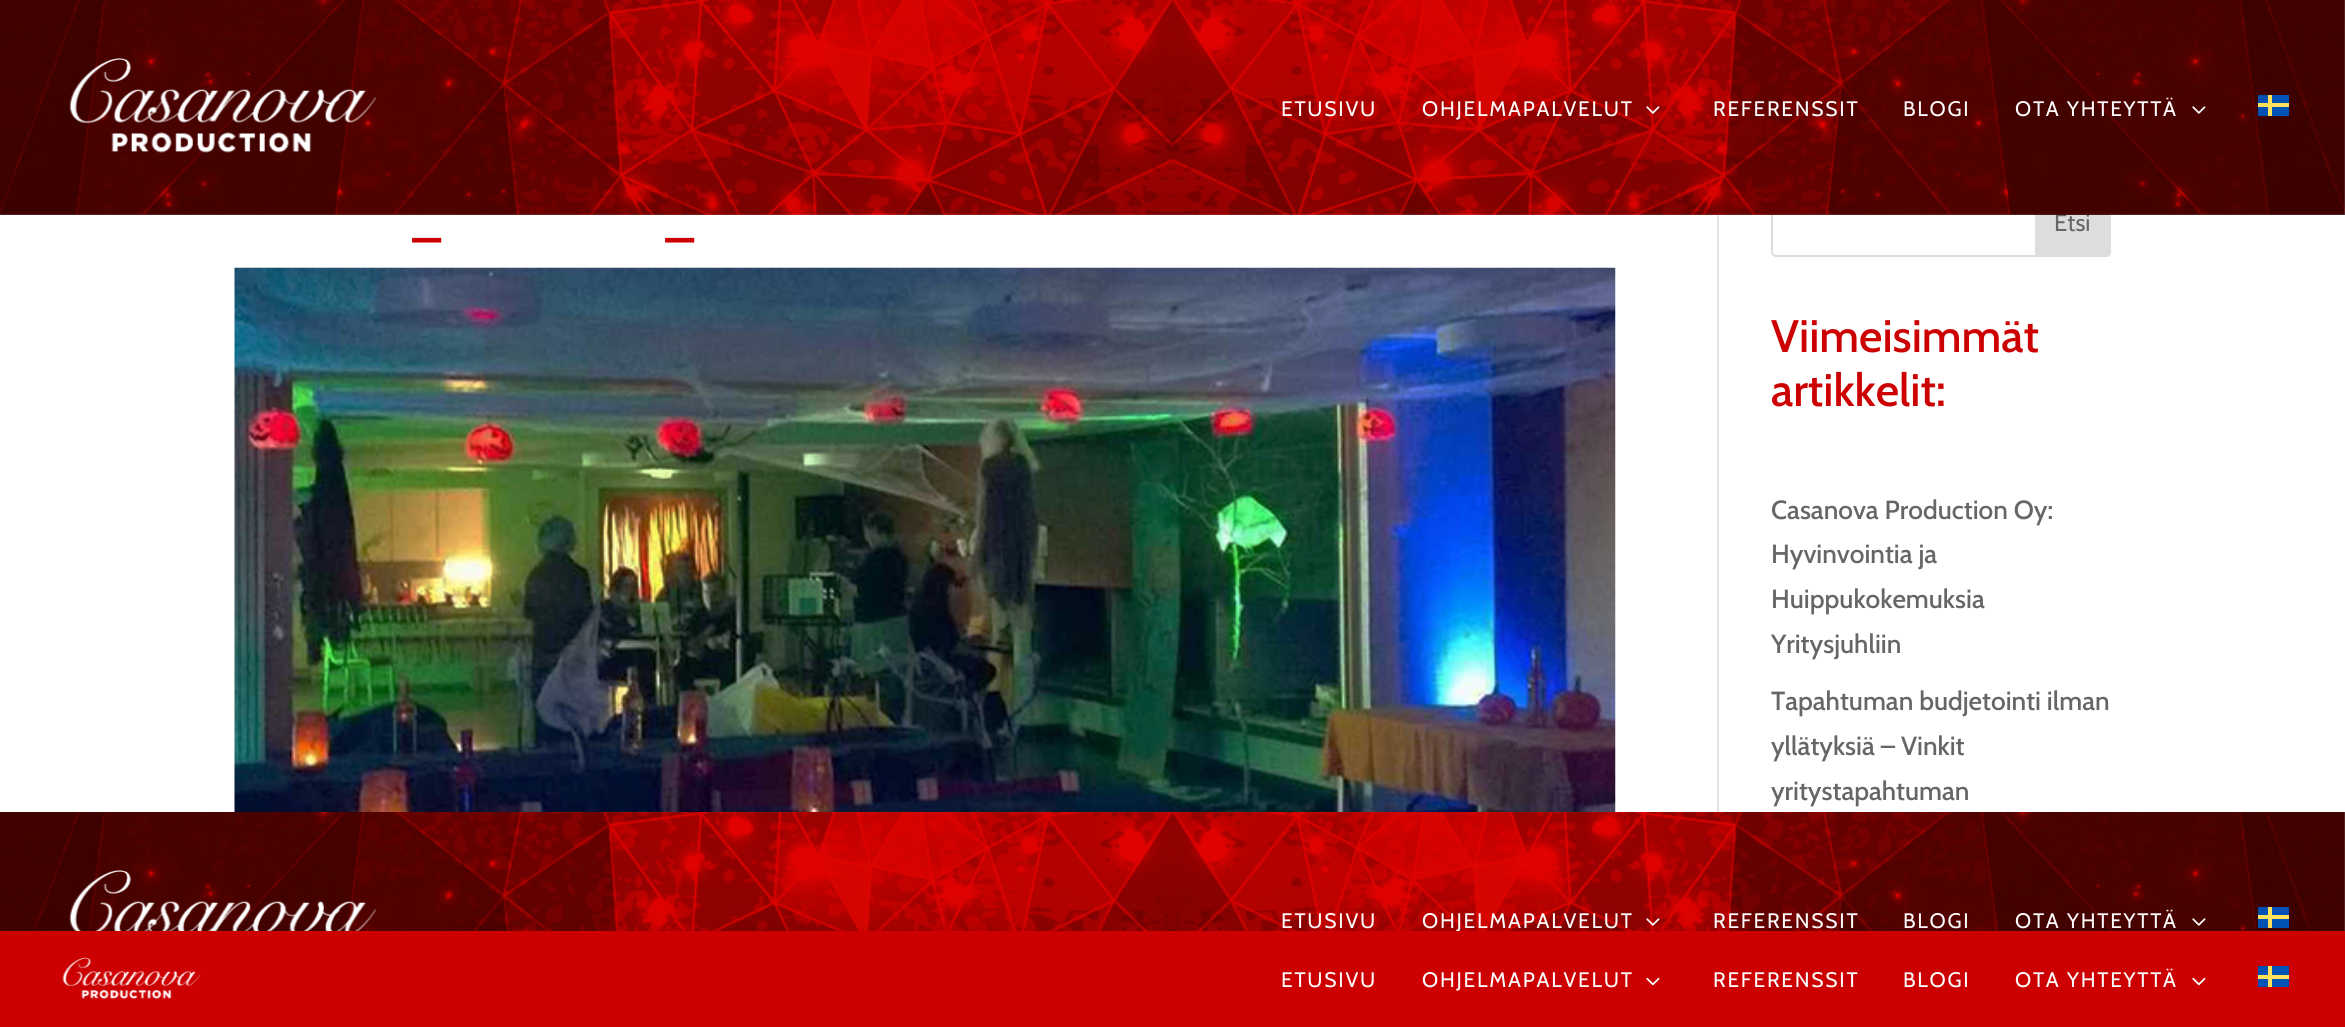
import math
import cairocffi as cairo

surface = cairo.ImageSurface(cairo.FORMAT_RGB24, 2345, 1027)
cr = cairo.Context(surface)
options = cairo.FontOptions()
options.set_hint_metrics(cairo.HINT_METRICS_OFF)
options.set_hint_style(cairo.HINT_STYLE_NONE)
cr.set_font_options(options)
cr.set_miter_limit(4)


def use_color(code):
    cr.set_source_rgb(*(v / 255 for v in bytes.fromhex(code[-6:])))


def spaced_text(x, y, s, letter, word):
    cr.move_to(x, y)
    for ch in s:
        cr.show_text(ch)
        cr.rel_move_to(letter + word * (ch == ' '), 0)


def round_rect(x, y, w, h, r):
    cr.new_sub_path()
    for i, (u, v) in enumerate([(x + w - r, y + h - r), (x + r, y + h - r), (x + r, y + r), (x + w - r, y + r)]):
        cr.arc(u, v, r, i * math.pi / 2, (i + 1) * math.pi / 2)
    cr.close_path()


def shadow(x, y, w, h, r, blur, alpha):
    cr.push_group_with_content(cairo.CONTENT_ALPHA)
    cr.set_operator(cairo.OPERATOR_SOURCE)
    for i in range(15, -16, -2):
        e = blur * i / 6
        if min(w, h) + 2 * e > 0:
            cr.set_source_rgba(0, 0, 0, alpha * math.erfc((i - 1) / 8.5) / 2)
            round_rect(x - e, y - e, w + 2 * e, h + 2 * e, max(0, min(r + e + blur * .6, min(w, h) / 2 + e)))
            cr.fill()
    cr.mask(cr.pop_group())


def picture(path, x, y, w, h):
    cr.save()
    cr.set_source_surface(cairo.ImageSurface.create_from_png(path), x, y)
    cr.rectangle(x, y, w, h)
    cr.fill()
    cr.restore()


use_color("#ffffff")
cr.paint()
round_rect(1772, 188, 338, 68, 4)
use_color("#dddddd")
cr.stroke()
cr.new_path()
cr.move_to(2036, 188)
cr.line_to(2106, 188)
cr.curve_to(2108, 188, 2110, 190, 2110, 192)
cr.line_to(2110, 252)
cr.curve_to(2110, 254, 2108, 256, 2106, 256)
cr.line_to(2036, 256)
cr.close_path()
cr.fill_preserve()
cr.stroke()
cr.select_font_face("Cabin")
cr.set_font_size(24)
use_color("#666666")
cr.move_to(2054, 231)
cr.show_text("Etsi")
use_color("#e2e2e2")
cr.rectangle(1717, 213, 2, 599)
cr.fill()
picture("img1.png", 0, 0, 2345, 215)
picture("img2.png", 69, 58, 308, 95)
cr.set_font_size(21)
use_color("#fefcfc")
spaced_text(1281, 116, "ETUSIVU", 1.75, 0)
spaced_text(1422, 116, "OHJELMAPALVELUT", 1.75, 0)
picture("img3.png", 1646, 106, 14, 8)
spaced_text(1713, 116, "REFERENSSIT", 1.75, 0)
spaced_text(1903, 116, "BLOGI", 1.75, 0)
spaced_text(2015, 116, "OTA YHTEYTTÄ", 1.75, 0)
picture("img4.png", 2192, 106, 14, 8)
use_color("#0052b4")
cr.rectangle(2258, 95, 31, 21)
cr.fill()
use_color("#ffe15a")
cr.rectangle(2268, 95, 4, 21)
cr.fill()
cr.rectangle(2258, 103, 31, 4)
cr.fill()
cr.select_font_face("Cabin Medium")
cr.set_font_size(52)
use_color("#cc0000")
cr.move_to(412, 236)
cr.show_text("_")
cr.move_to(665, 236)
cr.show_text("_")
picture("img5.png", 234, 267, 1382, 545)
cr.set_font_size(45.5)
cr.move_to(1771, 352)
cr.show_text("Viimeisimmät")
cr.move_to(1771, 406)
cr.show_text("artikkelit:")
cr.set_font_size(26.25)
use_color("#666666")
cr.move_to(1771, 519)
cr.show_text("Casanova Production Oy:")
cr.move_to(1771, 563)
cr.show_text("Hyvinvointia ja")
cr.move_to(1771, 608)
cr.show_text("Huippukokemuksia")
cr.move_to(1771, 653)
cr.show_text("Yritysjuhliin")
cr.move_to(1771, 710)
cr.show_text("Tapahtuman budjetointi ilman")
cr.move_to(1771, 755)
cr.show_text("yllätyksiä – Vinkit")
cr.move_to(1771, 800)
cr.show_text("yritystapahtuman")
picture("img6.png", 0, 812, 2345, 119)
picture("img7.png", 69, 870, 308, 61)
cr.select_font_face("Cabin")
cr.set_font_size(21)
use_color("#fefcfc")
spaced_text(1281, 928, "ETUSIVU", 1.75, 0)
spaced_text(1422, 928, "OHJELMAPALVELUT", 1.75, 0)
picture("img3.png", 1646, 918, 14, 8)
spaced_text(1713, 928, "REFERENSSIT", 1.75, 0)
spaced_text(1903, 928, "BLOGI", 1.75, 0)
spaced_text(2015, 928, "OTA YHTEYTTÄ", 1.75, 0)
picture("img4.png", 2192, 918, 14, 8)
use_color("#0052b4")
cr.rectangle(2258, 907, 31, 21)
cr.fill()
use_color("#ffe15a")
cr.rectangle(2268, 907, 4, 21)
cr.fill()
cr.rectangle(2258, 915, 31, 4)
cr.fill()
use_color("#000000")
shadow(0, 931, 2345, 96, 0, 6, 0.1)
use_color("#cc0000")
cr.rectangle(0, 931, 2345, 96)
cr.fill()
picture("img8.png", 62, 957, 139, 42)
use_color("#fefcfc")
spaced_text(1281, 987, "ETUSIVU", 1.75, 0)
spaced_text(1422, 987, "OHJELMAPALVELUT", 1.75, 0)
picture("img9.png", 1646, 977, 14, 9)
spaced_text(1713, 987, "REFERENSSIT", 1.75, 0)
spaced_text(1903, 987, "BLOGI", 1.75, 0)
spaced_text(2015, 987, "OTA YHTEYTTÄ", 1.75, 0)
picture("img9.png", 2192, 977, 14, 9)
use_color("#0052b4")
cr.rectangle(2258, 966, 31, 21)
cr.fill()
use_color("#ffe15a")
cr.rectangle(2268, 966, 4, 21)
cr.fill()
cr.rectangle(2258, 975, 31, 4)
cr.fill()
surface.write_to_png("result.png")
